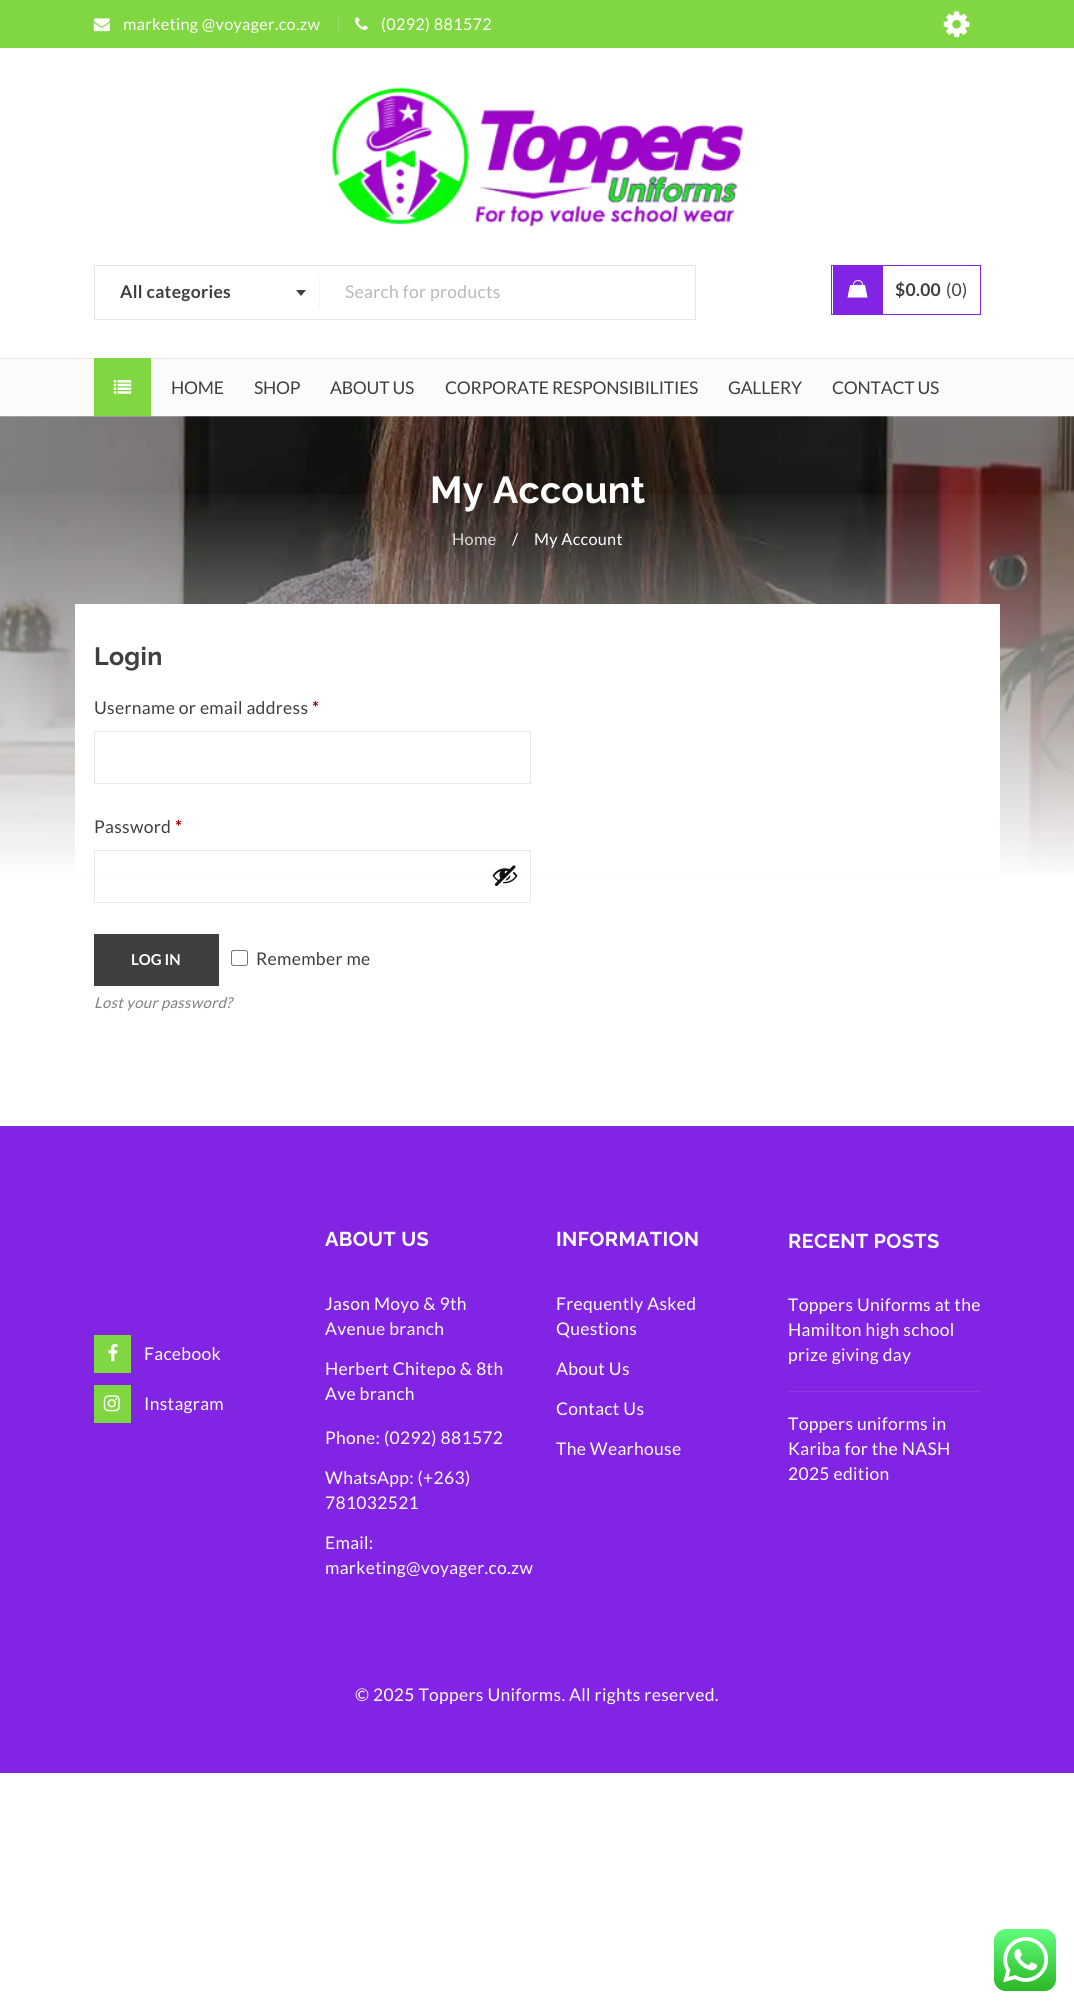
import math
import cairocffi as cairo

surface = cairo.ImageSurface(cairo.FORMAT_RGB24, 1074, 2009)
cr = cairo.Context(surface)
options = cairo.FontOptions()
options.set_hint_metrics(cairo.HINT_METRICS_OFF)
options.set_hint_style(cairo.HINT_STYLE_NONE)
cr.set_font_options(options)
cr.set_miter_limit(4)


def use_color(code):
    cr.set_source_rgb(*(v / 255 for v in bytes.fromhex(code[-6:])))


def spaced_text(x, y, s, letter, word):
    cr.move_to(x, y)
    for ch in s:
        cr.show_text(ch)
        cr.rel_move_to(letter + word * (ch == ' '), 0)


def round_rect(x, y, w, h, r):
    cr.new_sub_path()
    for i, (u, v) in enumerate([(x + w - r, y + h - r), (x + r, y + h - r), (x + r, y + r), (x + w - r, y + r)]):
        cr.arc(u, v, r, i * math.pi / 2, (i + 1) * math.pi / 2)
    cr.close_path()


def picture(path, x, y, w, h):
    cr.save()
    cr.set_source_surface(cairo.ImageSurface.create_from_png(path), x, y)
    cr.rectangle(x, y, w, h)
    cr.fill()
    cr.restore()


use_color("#ffffff")
cr.paint()
use_color("#81d742")
cr.rectangle(0, 0, 1074, 48)
cr.fill()
picture("img1.png", 93, 18, 17, 14)
cr.select_font_face("Lato")
cr.set_font_size(16.25)
use_color("#ffffff")
spaced_text(123, 30, "marketing @voyager.co.zw", 0.3, 0)
use_color("#9adf68")
cr.rectangle(338, 15, 1, 18)
cr.fill()
picture("img2.png", 355, 17, 13, 13)
use_color("#ffffff")
spaced_text(381, 30, "(0292) 881572", 0.3, 0)
picture("img3.png", 943, 11, 27, 27)
picture("img4.png", 332, 87, 411, 140)
cr.rectangle(94.5, 265.5, 601, 54)
use_color("#e5e5e5")
cr.set_line_width(1)
cr.stroke()
cr.select_font_face("Lato", cairo.FONT_SLANT_NORMAL, cairo.FONT_WEIGHT_BOLD)
cr.set_font_size(17.5)
use_color("#3f3f3f")
spaced_text(120, 298, "All categories", 0.3, 0)
use_color("#f6f6f6")
cr.rectangle(319, 276, 1, 33)
cr.fill()
use_color("#3f3f3f")
cr.new_path()
cr.move_to(296, 290)
cr.line_to(306, 290)
cr.line_to(301, 296)
cr.close_path()
cr.fill()
cr.select_font_face("Lato")
use_color("#b8b8b8")
spaced_text(345, 298, "Search for products", 0.3, 0)
cr.rectangle(831.5, 265.5, 149, 49)
use_color("#8224e3")
cr.stroke()
cr.rectangle(833, 266, 50, 48)
cr.fill()
use_color("#ffffff")
cr.new_path()
cr.move_to(867.5, 297.5)
cr.line_to(847.5, 297.5)
cr.line_to(850, 285)
cr.line_to(865, 285)
cr.close_path()
cr.fill()
cr.arc(858, 285, 4.5, 0, 2 * math.pi)
cr.stroke()
cr.select_font_face("Lato", cairo.FONT_SLANT_NORMAL, cairo.FONT_WEIGHT_BOLD)
use_color("#3f3f3f")
spaced_text(895, 296, "$0.00", 0.3, 0)
cr.select_font_face("Lato")
spaced_text(946, 296, "(0)", 0.3, 0)
use_color("#fbfbfb")
cr.rectangle(0, 359, 1074, 57)
cr.fill()
use_color("#e8e8e8")
cr.rectangle(0, 358, 1074, 1)
cr.fill()
use_color("#81d742")
cr.rectangle(94, 358, 57, 58)
cr.fill()
picture("img5.png", 113, 380, 19, 14)
use_color("#3f3f3f")
spaced_text(171, 394, "HOME", -0.2, 0)
spaced_text(254, 394, "SHOP", -0.2, 0)
spaced_text(330, 394, "ABOUT US", -0.2, 0)
spaced_text(445, 394, "CORPORATE RESPONSIBILITIES", -0.2, 0)
spaced_text(728, 394, "GALLERY", -0.2, 0)
spaced_text(832, 394, "CONTACT US", -0.2, 0)
picture("img6.png", 0, 416, 1074, 461)
gradient = cairo.LinearGradient(538, 416, 538, 879)
gradient.add_color_stop_rgba(0.15, 1, 1, 1, 0)
gradient.add_color_stop_rgba(1, 1, 1, 1, 1)
cr.set_source(gradient)
cr.rectangle(0, 494, 1074, 383)
cr.fill()
cr.select_font_face("Raleway", cairo.FONT_SLANT_NORMAL, cairo.FONT_WEIGHT_BOLD)
cr.set_font_size(37.5)
use_color("#ffffff")
spaced_text(430, 503, "My Account", 0.3, 0)
cr.select_font_face("Lato")
cr.set_font_size(16.25)
use_color("#dbd9d8")
spaced_text(452, 545, "Home", 0.3, 0)
use_color("#ffffff")
spaced_text(512, 545, "/", 0.3, 0)
spaced_text(534, 545, "My Account", 0.3, 0)
cr.rectangle(75, 604, 925, 271)
cr.fill()
cr.select_font_face("Raleway", cairo.FONT_SLANT_NORMAL, cairo.FONT_WEIGHT_BOLD)
cr.set_font_size(25)
use_color("#3f3f3f")
spaced_text(94, 665, "Login", 0.3, 0)
cr.select_font_face("Lato")
cr.set_font_size(17.5)
spaced_text(94, 714, "Username or email address", 0.3, 0)
cr.select_font_face("Lato", cairo.FONT_SLANT_NORMAL, cairo.FONT_WEIGHT_BOLD)
use_color("#aa0000")
spaced_text(312, 714, "*", 0.3, 0)
cr.rectangle(94.5, 731.5, 436, 52)
use_color("#e8e8e8")
cr.stroke()
cr.select_font_face("Lato")
use_color("#3f3f3f")
spaced_text(94, 833, "Password", 0.3, 0)
cr.select_font_face("Lato", cairo.FONT_SLANT_NORMAL, cairo.FONT_WEIGHT_BOLD)
use_color("#aa0000")
spaced_text(175, 833, "*", 0.3, 0)
cr.rectangle(94.5, 850.5, 436, 52)
use_color("#e8e8e8")
cr.stroke()
picture("img7.png", 492, 865, 26, 21)
use_color("#3f3f3f")
cr.rectangle(94, 934, 125, 52)
cr.fill()
cr.set_font_size(15)
use_color("#ffffff")
cr.move_to(131, 965)
cr.show_text("LOG IN")
round_rect(231.5, 950.5, 16, 15, 2)
use_color("#767676")
cr.stroke()
cr.select_font_face("Lato")
cr.set_font_size(17.5)
use_color("#3f3f3f")
spaced_text(256, 965, "Remember me", 0.3, 0)
cr.select_font_face("Lato", cairo.FONT_SLANT_ITALIC)
cr.set_font_size(14.9)
use_color("#808080")
spaced_text(94, 1008, "Lost your password?", 0.3, 0)
use_color("#8224e3")
cr.rectangle(0, 1126, 1074, 647)
cr.fill()
use_color("#81d742")
cr.rectangle(94, 1335, 37, 38)
cr.fill()
picture("img8.png", 108, 1343, 10, 19)
cr.select_font_face("Lato")
cr.set_font_size(17.5)
use_color("#ffffff")
spaced_text(144, 1360, "Facebook", 0.3, 0)
use_color("#81d742")
cr.rectangle(94, 1385, 37, 38)
cr.fill()
picture("img9.png", 103, 1395, 17, 17)
use_color("#ffffff")
spaced_text(144, 1410, "Instagram", 0.3, 0)
cr.select_font_face("Raleway", cairo.FONT_SLANT_NORMAL, cairo.FONT_WEIGHT_BOLD)
cr.set_font_size(20)
spaced_text(325, 1246, "ABOUT US", 0.3, 0)
cr.select_font_face("Lato")
cr.set_font_size(17.5)
spaced_text(325, 1310, "Jason Moyo & 9th", 0.3, 0)
spaced_text(325, 1335, "Avenue branch", 0.3, 0)
spaced_text(325, 1375, "Herbert Chitepo & 8th", 0.3, 0)
spaced_text(325, 1400, "Ave branch", 0.3, 0)
spaced_text(325, 1444, "Phone: (0292) 881572", 0.3, 0)
spaced_text(325, 1484, "WhatsApp: (+263)", 0.3, 0)
spaced_text(325, 1509, "781032521", 0.3, 0)
spaced_text(325, 1549, "Email:", 0.3, 0)
spaced_text(325, 1574, "marketing@voyager.co.zw", 0.3, 0)
cr.select_font_face("Raleway", cairo.FONT_SLANT_NORMAL, cairo.FONT_WEIGHT_BOLD)
cr.set_font_size(20)
spaced_text(556, 1246, "INFORMATION", 0.3, 0)
cr.select_font_face("Lato")
cr.set_font_size(17.5)
spaced_text(556, 1310, "Frequently Asked", 0.3, 0)
spaced_text(556, 1335, "Questions", 0.3, 0)
spaced_text(556, 1375, "About Us", 0.3, 0)
spaced_text(556, 1415, "Contact Us", 0.3, 0)
spaced_text(556, 1455, "The Wearhouse", 0.3, 0)
cr.select_font_face("Raleway", cairo.FONT_SLANT_NORMAL, cairo.FONT_WEIGHT_BOLD)
cr.set_font_size(20)
spaced_text(788, 1248, "RECENT POSTS", 0.3, 0)
cr.select_font_face("Lato")
cr.set_font_size(17.5)
spaced_text(788, 1311, "Toppers Uniforms at the", 0.3, 0)
spaced_text(788, 1336, "Hamilton high school", 0.3, 0)
spaced_text(788, 1361, "prize giving day", 0.3, 0)
use_color("#8c38e3")
cr.rectangle(788, 1391, 193, 1)
cr.fill()
use_color("#ffffff")
spaced_text(788, 1430, "Toppers uniforms in", 0.3, 0)
spaced_text(788, 1455, "Kariba for the NASH", 0.3, 0)
spaced_text(788, 1480, "2025 edition", 0.3, 0)
spaced_text(355, 1701, "© 2025 Toppers Uniforms. All rights reserved.", 0.3, 0)
picture("img10.png", 994, 1929, 62, 62)
surface.write_to_png("result.png")
